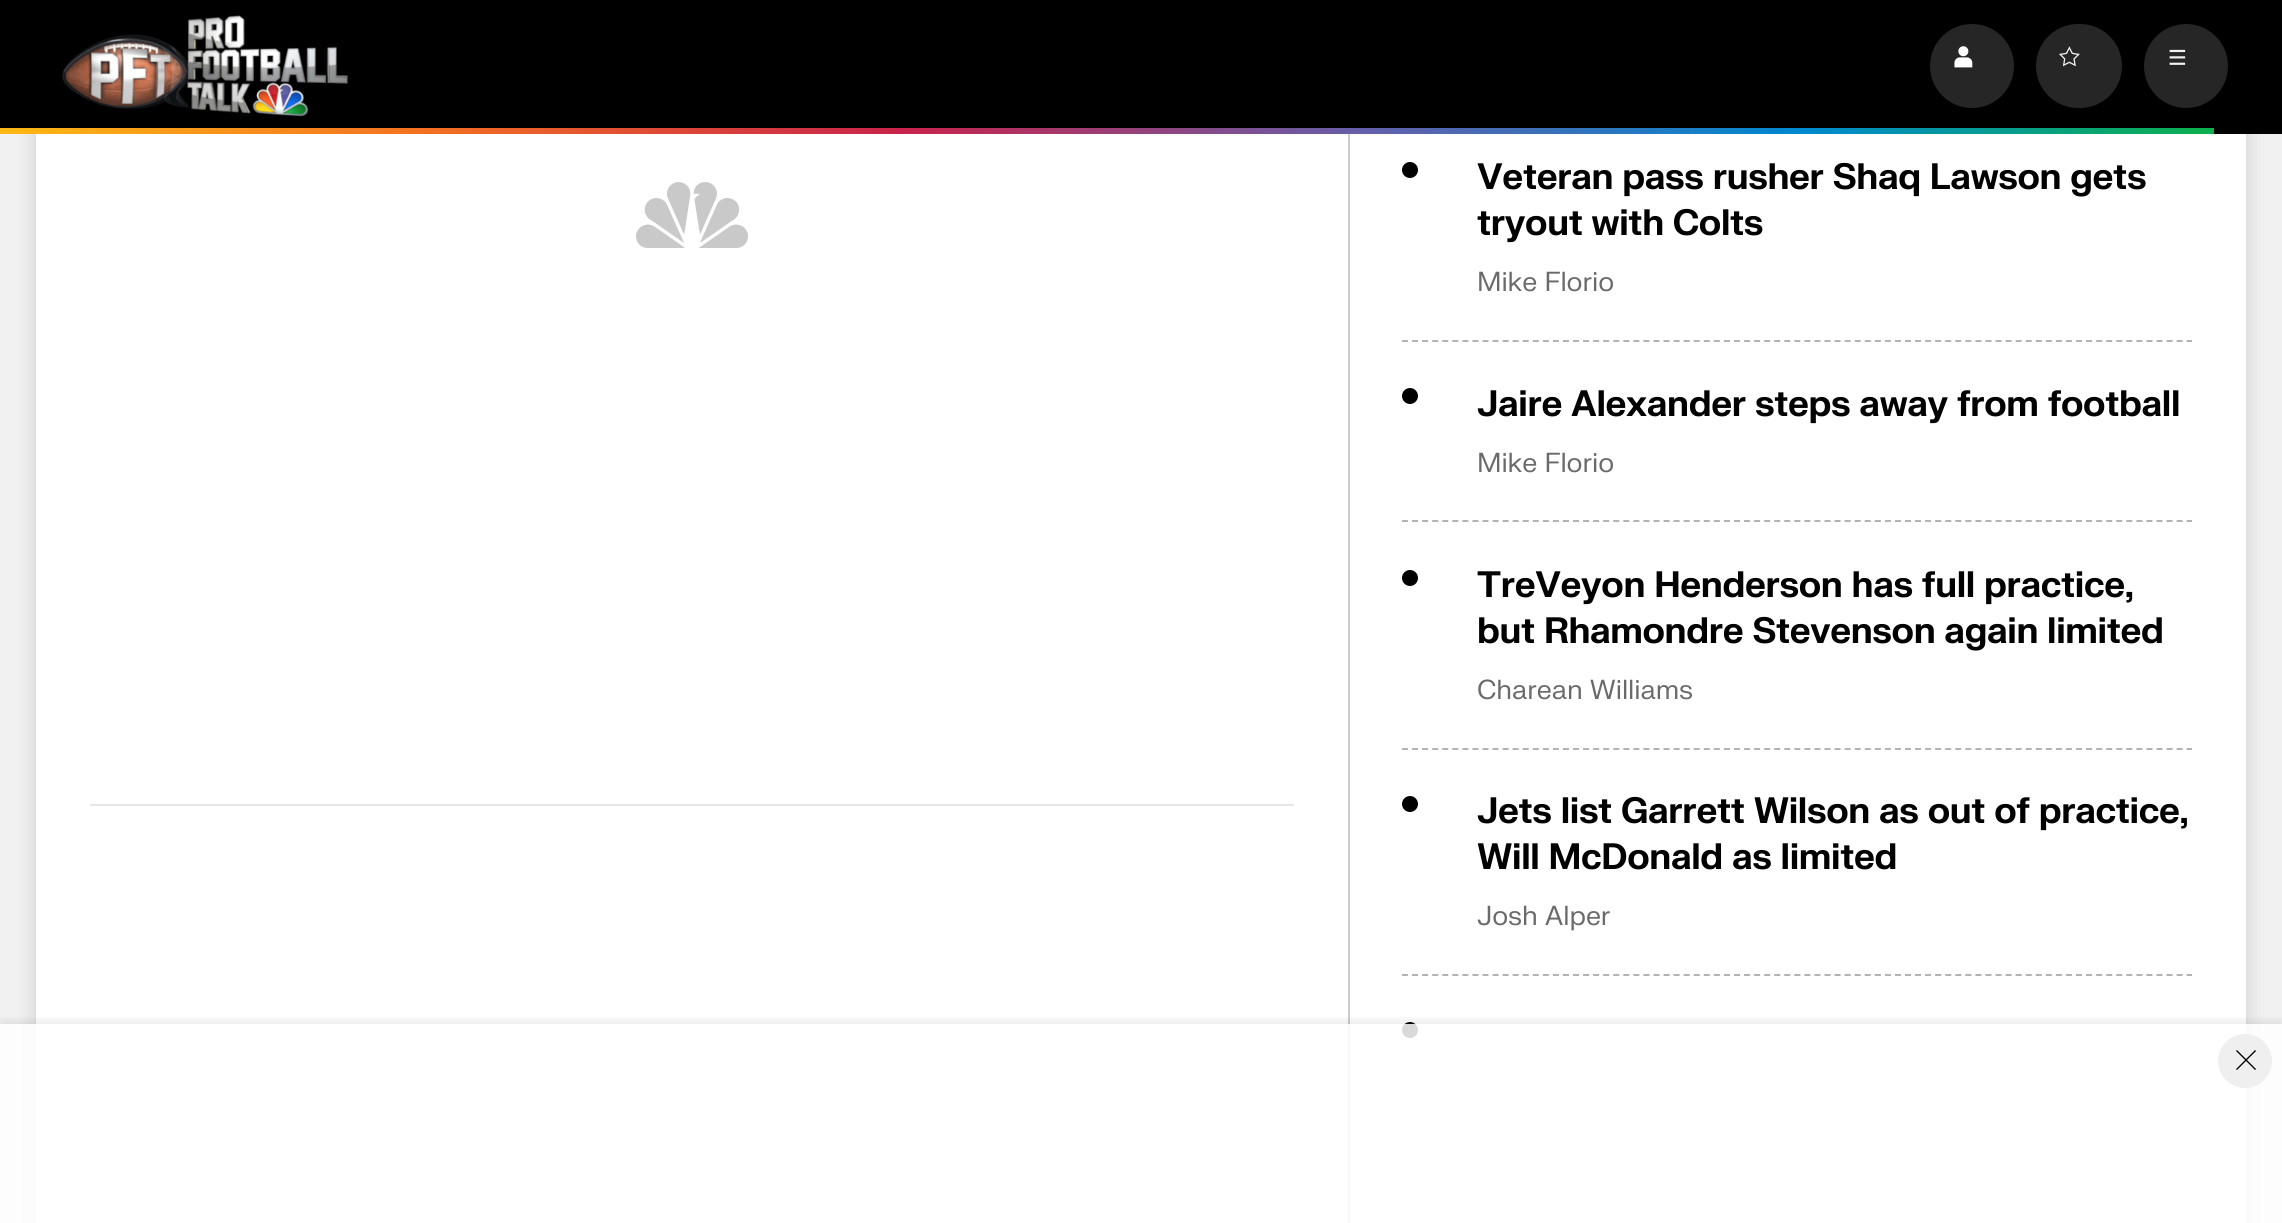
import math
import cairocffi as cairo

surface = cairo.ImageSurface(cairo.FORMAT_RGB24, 2282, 1223)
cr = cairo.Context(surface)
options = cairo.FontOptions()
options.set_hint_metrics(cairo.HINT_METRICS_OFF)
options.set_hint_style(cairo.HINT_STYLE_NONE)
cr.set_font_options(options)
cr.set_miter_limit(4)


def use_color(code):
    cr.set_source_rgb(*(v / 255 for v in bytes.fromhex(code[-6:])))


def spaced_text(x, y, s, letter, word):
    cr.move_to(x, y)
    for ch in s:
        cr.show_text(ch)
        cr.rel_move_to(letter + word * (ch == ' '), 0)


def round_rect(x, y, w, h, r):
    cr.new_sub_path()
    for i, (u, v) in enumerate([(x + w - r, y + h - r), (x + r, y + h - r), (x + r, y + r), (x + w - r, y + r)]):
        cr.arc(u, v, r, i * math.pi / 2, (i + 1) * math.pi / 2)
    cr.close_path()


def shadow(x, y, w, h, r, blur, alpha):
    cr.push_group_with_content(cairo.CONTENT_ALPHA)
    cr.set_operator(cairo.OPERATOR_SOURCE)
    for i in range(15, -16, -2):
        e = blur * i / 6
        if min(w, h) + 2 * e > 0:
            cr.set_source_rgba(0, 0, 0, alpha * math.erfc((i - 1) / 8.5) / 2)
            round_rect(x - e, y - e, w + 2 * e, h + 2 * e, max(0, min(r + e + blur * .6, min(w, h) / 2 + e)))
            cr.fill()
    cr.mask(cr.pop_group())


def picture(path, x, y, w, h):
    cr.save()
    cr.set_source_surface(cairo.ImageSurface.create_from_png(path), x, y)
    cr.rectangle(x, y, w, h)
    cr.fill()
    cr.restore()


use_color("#f1f1f1")
cr.paint()
use_color("#000000")
shadow(36, -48, 2210, 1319, 18, 10, 0.15)
use_color("#000000")
cr.rectangle(0, 0, 2282, 134)
cr.fill()
picture("img1.png", 62, 15, 287, 102)
use_color("#262626")
cr.arc(1972, 66, 42, 0, 2 * math.pi)
cr.fill()
picture("img2.png", 1954, 46, 19, 22)
round_rect(2036, 24, 86, 84, 42)
cr.fill()
picture("img3.png", 2059, 46, 21, 21)
cr.arc(2186, 66, 42, 0, 2 * math.pi)
cr.fill()
picture("img4.png", 2169, 49, 17, 16)
picture("img5.png", 0, 128, 2214, 6)
use_color("#ffffff")
cr.rectangle(36, 134, 2210, 1089)
cr.fill()
use_color("#e6e6e6")
cr.rectangle(90, 804, 1204, 2)
cr.fill()
picture("img6.png", 636, 182, 112, 66)
use_color("#cccccc")
cr.rectangle(1348, 134, 2, 1089)
cr.fill()
use_color("#000000")
cr.arc(1410, 170, 8, 0, 2 * math.pi)
cr.fill()
cr.select_font_face("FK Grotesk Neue", cairo.FONT_SLANT_NORMAL, cairo.FONT_WEIGHT_BOLD)
cr.set_font_size(35.7)
spaced_text(1477, 189, "Veteran pass rusher Shaq Lawson gets", -0.35, 0)
spaced_text(1477, 235, "tryout with Colts", -0.35, 0)
cr.select_font_face("FK Grotesk Neue")
cr.set_font_size(26.75)
use_color("#6a6a6a")
spaced_text(1477, 291, "Mike Florio", -0.1, 0)
cr.new_path()
cr.move_to(1402, 341)
cr.line_to(2192, 341)
use_color("#b3b3b3")
cr.set_dash([6, 4.06])
cr.stroke()
use_color("#000000")
cr.arc(1410, 396, 8, 0, 2 * math.pi)
cr.fill()
cr.select_font_face("FK Grotesk Neue", cairo.FONT_SLANT_NORMAL, cairo.FONT_WEIGHT_BOLD)
cr.set_font_size(35.7)
spaced_text(1477, 416, "Jaire Alexander steps away from football", -0.35, 0)
cr.select_font_face("FK Grotesk Neue")
cr.set_font_size(26.75)
use_color("#6a6a6a")
spaced_text(1477, 472, "Mike Florio", -0.1, 0)
cr.new_path()
cr.move_to(1402, 521)
cr.line_to(2192, 521)
use_color("#b3b3b3")
cr.stroke()
use_color("#000000")
cr.arc(1410, 578, 8, 0, 2 * math.pi)
cr.fill()
cr.select_font_face("FK Grotesk Neue", cairo.FONT_SLANT_NORMAL, cairo.FONT_WEIGHT_BOLD)
cr.set_font_size(35.7)
spaced_text(1477, 597, "TreVeyon Henderson has full practice,", -0.35, 0)
spaced_text(1477, 643, "but Rhamondre Stevenson again limited", -0.35, 0)
cr.select_font_face("FK Grotesk Neue")
cr.set_font_size(26.75)
use_color("#6a6a6a")
spaced_text(1477, 699, "Charean Williams", -0.1, 0)
cr.new_path()
cr.move_to(1402, 749)
cr.line_to(2192, 749)
use_color("#b3b3b3")
cr.stroke()
use_color("#000000")
cr.arc(1410, 804, 8, 0, 2 * math.pi)
cr.fill()
cr.select_font_face("FK Grotesk Neue", cairo.FONT_SLANT_NORMAL, cairo.FONT_WEIGHT_BOLD)
cr.set_font_size(35.7)
spaced_text(1477, 823, "Jets list Garrett Wilson as out of practice,", -0.35, 0)
spaced_text(1477, 869, "Will McDonald as limited", -0.35, 0)
cr.select_font_face("FK Grotesk Neue")
cr.set_font_size(26.75)
use_color("#6a6a6a")
spaced_text(1477, 925, "Josh Alper", -0.1, 0)
cr.new_path()
cr.move_to(1402, 975)
cr.line_to(2192, 975)
use_color("#b3b3b3")
cr.stroke()
use_color("#000000")
cr.arc(1410, 1030, 8, 0, 2 * math.pi)
cr.fill()
cr.save()
cr.rectangle(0, 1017, 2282, 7)
cr.clip()
use_color("#000000")
shadow(0, 1020, 2282, 200, 0, 4, 0.08)
cr.restore()
cr.set_source_rgba(1, 1, 1, 0.85)
cr.rectangle(0, 1024, 2282, 199)
cr.fill()
use_color("#efefef")
cr.arc(2245, 1061, 27, 0, 2 * math.pi)
cr.fill()
picture("img7.png", 2236, 1050, 20, 20)
surface.write_to_png("result.png")
